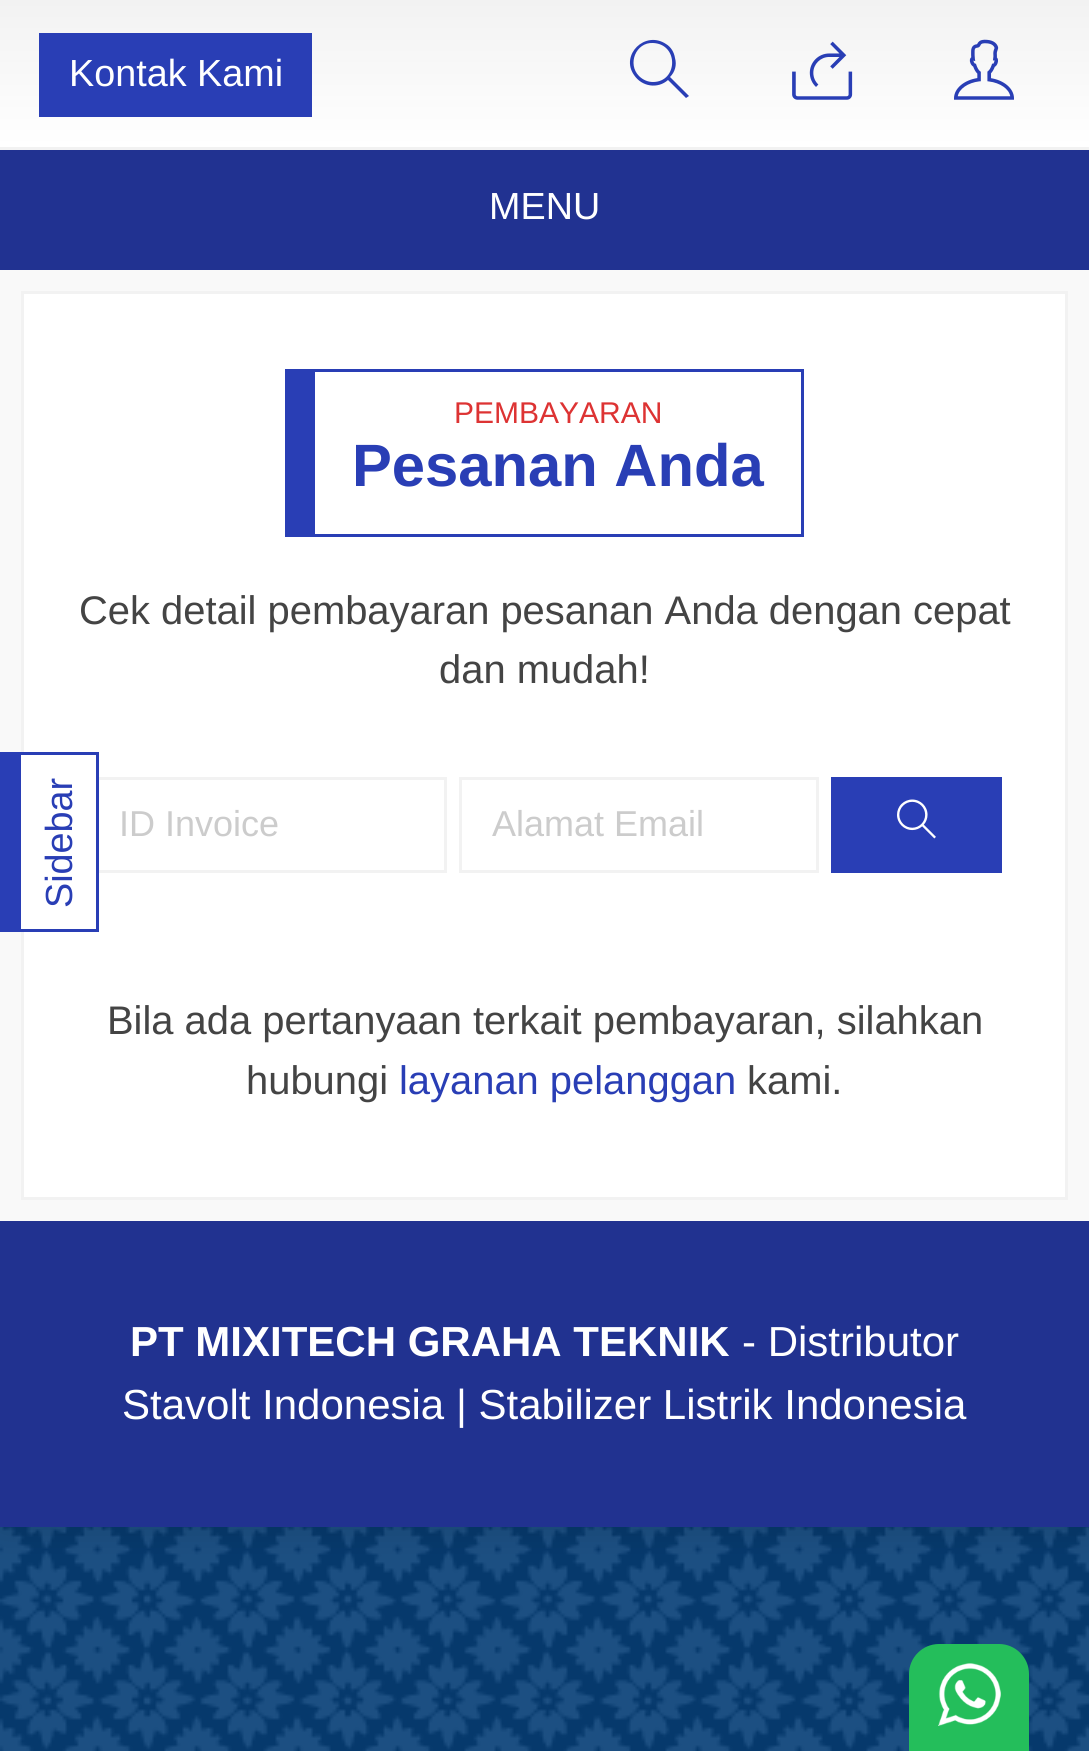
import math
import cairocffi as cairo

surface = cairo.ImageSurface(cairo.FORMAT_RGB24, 1089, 1751)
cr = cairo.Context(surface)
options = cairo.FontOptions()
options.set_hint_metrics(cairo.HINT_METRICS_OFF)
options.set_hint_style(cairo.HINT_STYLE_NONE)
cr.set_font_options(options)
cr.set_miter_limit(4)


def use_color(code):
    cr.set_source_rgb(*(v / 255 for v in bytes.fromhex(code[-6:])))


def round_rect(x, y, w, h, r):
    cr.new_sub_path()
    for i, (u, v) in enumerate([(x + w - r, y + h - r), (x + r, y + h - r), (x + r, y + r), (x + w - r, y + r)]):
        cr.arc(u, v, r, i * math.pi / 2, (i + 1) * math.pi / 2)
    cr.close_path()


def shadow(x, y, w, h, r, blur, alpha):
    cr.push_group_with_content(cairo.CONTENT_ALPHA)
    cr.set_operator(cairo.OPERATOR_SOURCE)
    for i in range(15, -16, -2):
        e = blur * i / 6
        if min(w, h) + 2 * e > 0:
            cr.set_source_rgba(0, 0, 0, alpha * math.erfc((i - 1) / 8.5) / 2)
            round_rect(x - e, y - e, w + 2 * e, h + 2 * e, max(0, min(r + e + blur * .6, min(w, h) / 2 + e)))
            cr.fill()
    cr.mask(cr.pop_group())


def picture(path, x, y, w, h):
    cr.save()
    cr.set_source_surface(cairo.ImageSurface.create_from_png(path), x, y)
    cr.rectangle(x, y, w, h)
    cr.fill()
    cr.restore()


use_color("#0055aa")
cr.paint()
picture("img1.png", 0, 1527, 1089, 224)
use_color("#000000")
shadow(0, 0, 1089, 1527, 0, 18, 0.15)
gradient = cairo.LinearGradient(545, 0, 545, 147)
gradient.add_color_stop_rgba(0, 0.949, 0.949, 0.949, 1)
gradient.add_color_stop_rgba(1, 1, 1, 1, 1)
cr.set_source(gradient)
cr.rectangle(0, 0, 1089, 147)
cr.fill()
gradient = cairo.LinearGradient(545, 147, 545, 294)
gradient.add_color_stop_rgba(0, 0.949, 0.949, 0.949, 1)
gradient.add_color_stop_rgba(1, 1, 1, 1, 1)
cr.set_source(gradient)
cr.rectangle(0, 147, 1089, 3)
cr.fill()
use_color("#293eb5")
cr.rectangle(39, 33, 273, 84)
cr.fill()
cr.select_font_face("Arimo")
cr.set_font_size(37.75)
use_color("#ffffff")
cr.move_to(69, 86)
cr.show_text("Kontak Kami")
use_color("#293eb5")
cr.new_path()
cr.move_to(689, 96)
cr.line_to(670, 77)
cr.curve_to(675, 72, 677, 65, 675, 58)
cr.curve_to(674, 52, 671, 47, 666, 44)
cr.curve_to(645, 30, 620, 55, 634, 75)
cr.curve_to(642, 87, 658, 89, 668, 80)
cr.line_to(686, 98)
cr.close_path()
cr.move_to(653, 82)
cr.curve_to(648, 82, 643, 80, 639, 76)
cr.curve_to(627, 64, 636, 42, 653, 43)
cr.curve_to(679, 44, 678, 82, 653, 82)
cr.close_path()
cr.fill()
picture("img2.png", 792, 41, 61, 59)
picture("img3.png", 954, 39, 60, 61)
use_color("#213291")
cr.rectangle(0, 150, 1089, 120)
cr.fill()
use_color("#ffffff")
cr.move_to(489, 219)
cr.show_text("MENU")
use_color("#f9f9f9")
cr.rectangle(0, 270, 1089, 951)
cr.fill()
use_color("#ffffff")
cr.rectangle(22.5, 292.5, 1044, 906)
cr.fill_preserve()
use_color("#f2f2f2")
cr.set_line_width(3)
cr.stroke()
cr.rectangle(88.5, 778.5, 357, 93)
cr.stroke()
use_color("#ffffff")
cr.rectangle(21, 755, 75, 174)
cr.fill()
use_color("#293eb5")
cr.rectangle(0, 755, 21, 174)
cr.fill()
cr.rectangle(0, 752, 99, 3)
cr.fill()
cr.rectangle(96, 752, 3, 180)
cr.fill()
cr.rectangle(0, 929, 99, 3)
cr.fill()
cr.save()
cr.translate(72, 908)
cr.rotate(-90 * math.pi / 180)
cr.move_to(0, 0)
cr.show_text("Sidebar")
cr.restore()
cr.rectangle(315, 369, 489, 3)
cr.fill()
cr.rectangle(801, 369, 3, 168)
cr.fill()
cr.rectangle(315, 534, 489, 3)
cr.fill()
cr.rectangle(285, 369, 30, 168)
cr.fill()
cr.set_font_size(30)
use_color("#dd3333")
cr.move_to(454, 423)
cr.show_text("PEMBAYARAN")
cr.select_font_face("Arimo", cairo.FONT_SLANT_NORMAL, cairo.FONT_WEIGHT_BOLD)
cr.set_font_size(59.75)
use_color("#293eb5")
cr.move_to(352, 486)
cr.show_text("Pesanan Anda")
cr.select_font_face("Arimo")
cr.set_font_size(39.9)
use_color("#444444")
cr.move_to(79, 624)
cr.show_text("Cek detail pembayaran pesanan Anda dengan cepat")
cr.move_to(439, 683)
cr.show_text("dan mudah!")
cr.set_font_size(36)
use_color("#cccccc")
cr.move_to(119, 836)
cr.show_text("ID Invoice")
cr.rectangle(460.5, 778.5, 357, 93)
use_color("#f2f2f2")
cr.stroke()
use_color("#cccccc")
cr.move_to(492, 836)
cr.show_text("Alamat Email")
use_color("#293eb5")
cr.rectangle(831, 777, 171, 96)
cr.fill()
picture("img4.png", 897, 799, 39, 40)
cr.set_font_size(39.9)
use_color("#444444")
cr.move_to(107, 1034)
cr.show_text("Bila ada pertanyaan terkait pembayaran, silahkan")
cr.move_to(246, 1094)
cr.show_text("hubungi")
use_color("#293eb5")
cr.move_to(399, 1094)
cr.show_text("layanan pelanggan")
use_color("#444444")
cr.move_to(747, 1094)
cr.show_text("kami.")
use_color("#213290")
cr.rectangle(0, 1221, 1089, 306)
cr.fill()
cr.select_font_face("Arimo", cairo.FONT_SLANT_NORMAL, cairo.FONT_WEIGHT_BOLD)
cr.set_font_size(42)
use_color("#ffffff")
cr.move_to(130, 1356)
cr.show_text("PT MIXITECH GRAHA TEKNIK")
cr.select_font_face("Arimo")
cr.move_to(742, 1356)
cr.show_text("- Distributor")
cr.move_to(122, 1419)
cr.show_text("Stavolt Indonesia | Stabilizer Listrik Indonesia")
use_color("#24be5b")
cr.new_path()
cr.move_to(939, 1644)
cr.line_to(999, 1644)
cr.curve_to(1015.5, 1644, 1029, 1657.5, 1029, 1674)
cr.line_to(1029, 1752)
cr.line_to(909, 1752)
cr.line_to(909, 1674)
cr.curve_to(909, 1657.5, 922.5, 1644, 939, 1644)
cr.close_path()
cr.fill()
picture("img5.png", 938, 1663, 63, 63)
surface.write_to_png("result.png")
